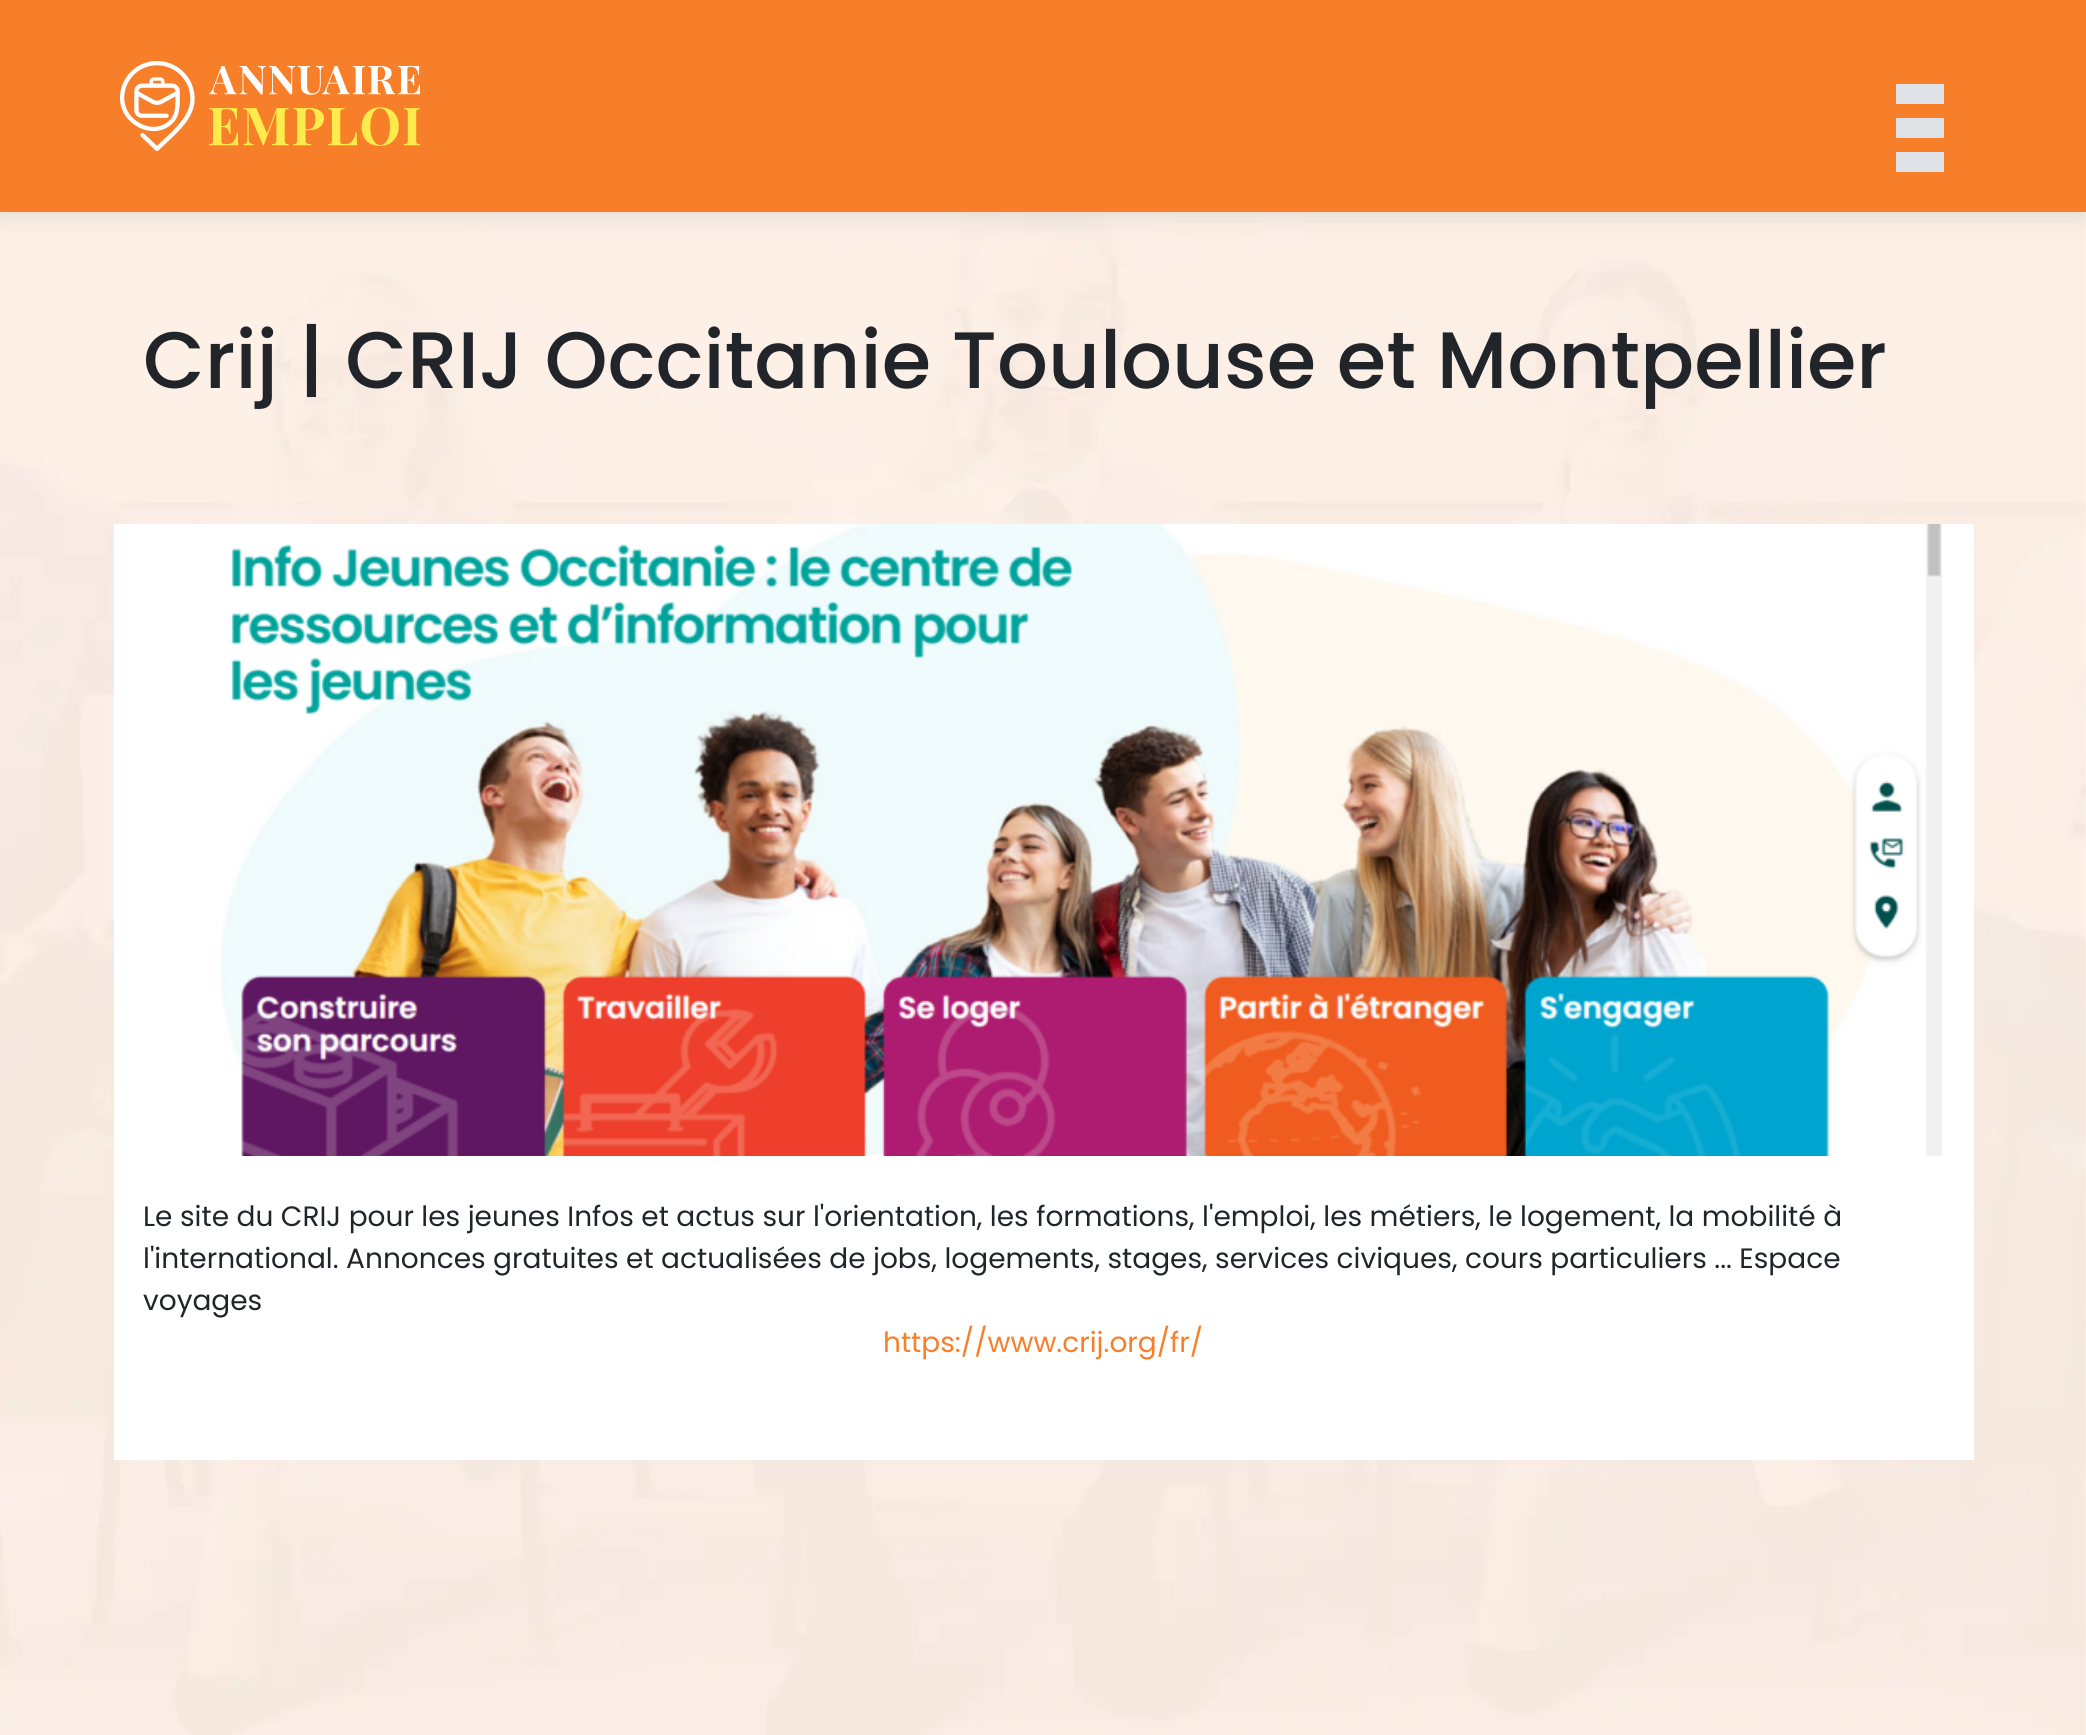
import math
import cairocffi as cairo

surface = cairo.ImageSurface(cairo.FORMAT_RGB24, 2086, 1735)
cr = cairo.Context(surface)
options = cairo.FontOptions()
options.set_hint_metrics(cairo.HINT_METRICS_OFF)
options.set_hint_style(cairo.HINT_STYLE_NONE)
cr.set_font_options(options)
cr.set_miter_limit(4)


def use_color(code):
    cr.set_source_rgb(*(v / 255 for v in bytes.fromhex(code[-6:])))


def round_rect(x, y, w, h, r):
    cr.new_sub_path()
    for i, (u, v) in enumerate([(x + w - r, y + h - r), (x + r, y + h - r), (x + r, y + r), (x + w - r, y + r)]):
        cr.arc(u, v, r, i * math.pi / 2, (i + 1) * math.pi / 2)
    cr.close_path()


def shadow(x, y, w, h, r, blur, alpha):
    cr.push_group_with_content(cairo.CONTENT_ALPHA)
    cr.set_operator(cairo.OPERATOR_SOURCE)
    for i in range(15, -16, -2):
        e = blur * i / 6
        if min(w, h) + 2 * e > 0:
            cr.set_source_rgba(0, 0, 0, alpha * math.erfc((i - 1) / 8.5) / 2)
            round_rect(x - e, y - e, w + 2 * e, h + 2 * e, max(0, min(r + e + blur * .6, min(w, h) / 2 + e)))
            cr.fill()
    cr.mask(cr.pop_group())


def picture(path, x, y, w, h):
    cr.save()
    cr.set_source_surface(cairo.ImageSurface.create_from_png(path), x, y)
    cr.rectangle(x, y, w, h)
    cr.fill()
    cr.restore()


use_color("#ffffff")
cr.paint()
picture("img1.png", 0, 212, 2086, 1523)
use_color("#000000")
shadow(0, 4, 2086, 212, 0, 13, 0.1)
use_color("#f77f2a")
cr.rectangle(0, 0, 2086, 212)
cr.fill()
picture("img2.png", 119, 61, 302, 90)
use_color("#dee2e6")
cr.rectangle(1896, 84, 48, 20)
cr.fill()
cr.rectangle(1896, 118, 48, 20)
cr.fill()
cr.rectangle(1896, 152, 48, 20)
cr.fill()
cr.select_font_face("Poppins Medium")
cr.set_font_size(80)
use_color("#212529")
cr.move_to(143, 388)
cr.show_text("Crij | CRIJ Occitanie Toulouse et Montpellier")
use_color("#ffffff")
cr.rectangle(114, 524, 1860, 936)
cr.fill()
picture("img3.png", 220, 524, 1722, 632)
cr.select_font_face("Poppins")
cr.set_font_size(28)
use_color("#212529")
cr.move_to(143, 1226)
cr.show_text("Le site du CRIJ pour les jeunes Infos et actus sur l'orientation, les formations, l'emploi, les métiers, le logement, la mobilité à")
cr.move_to(143, 1268)
cr.show_text("l'international. Annonces gratuites et actualisées de jobs, logements, stages, services civiques, cours particuliers ... Espace")
cr.move_to(143, 1310)
cr.show_text("voyages")
use_color("#f77f2a")
cr.move_to(883, 1352)
cr.show_text("https://www.crij.org/fr/")
surface.write_to_png("result.png")
